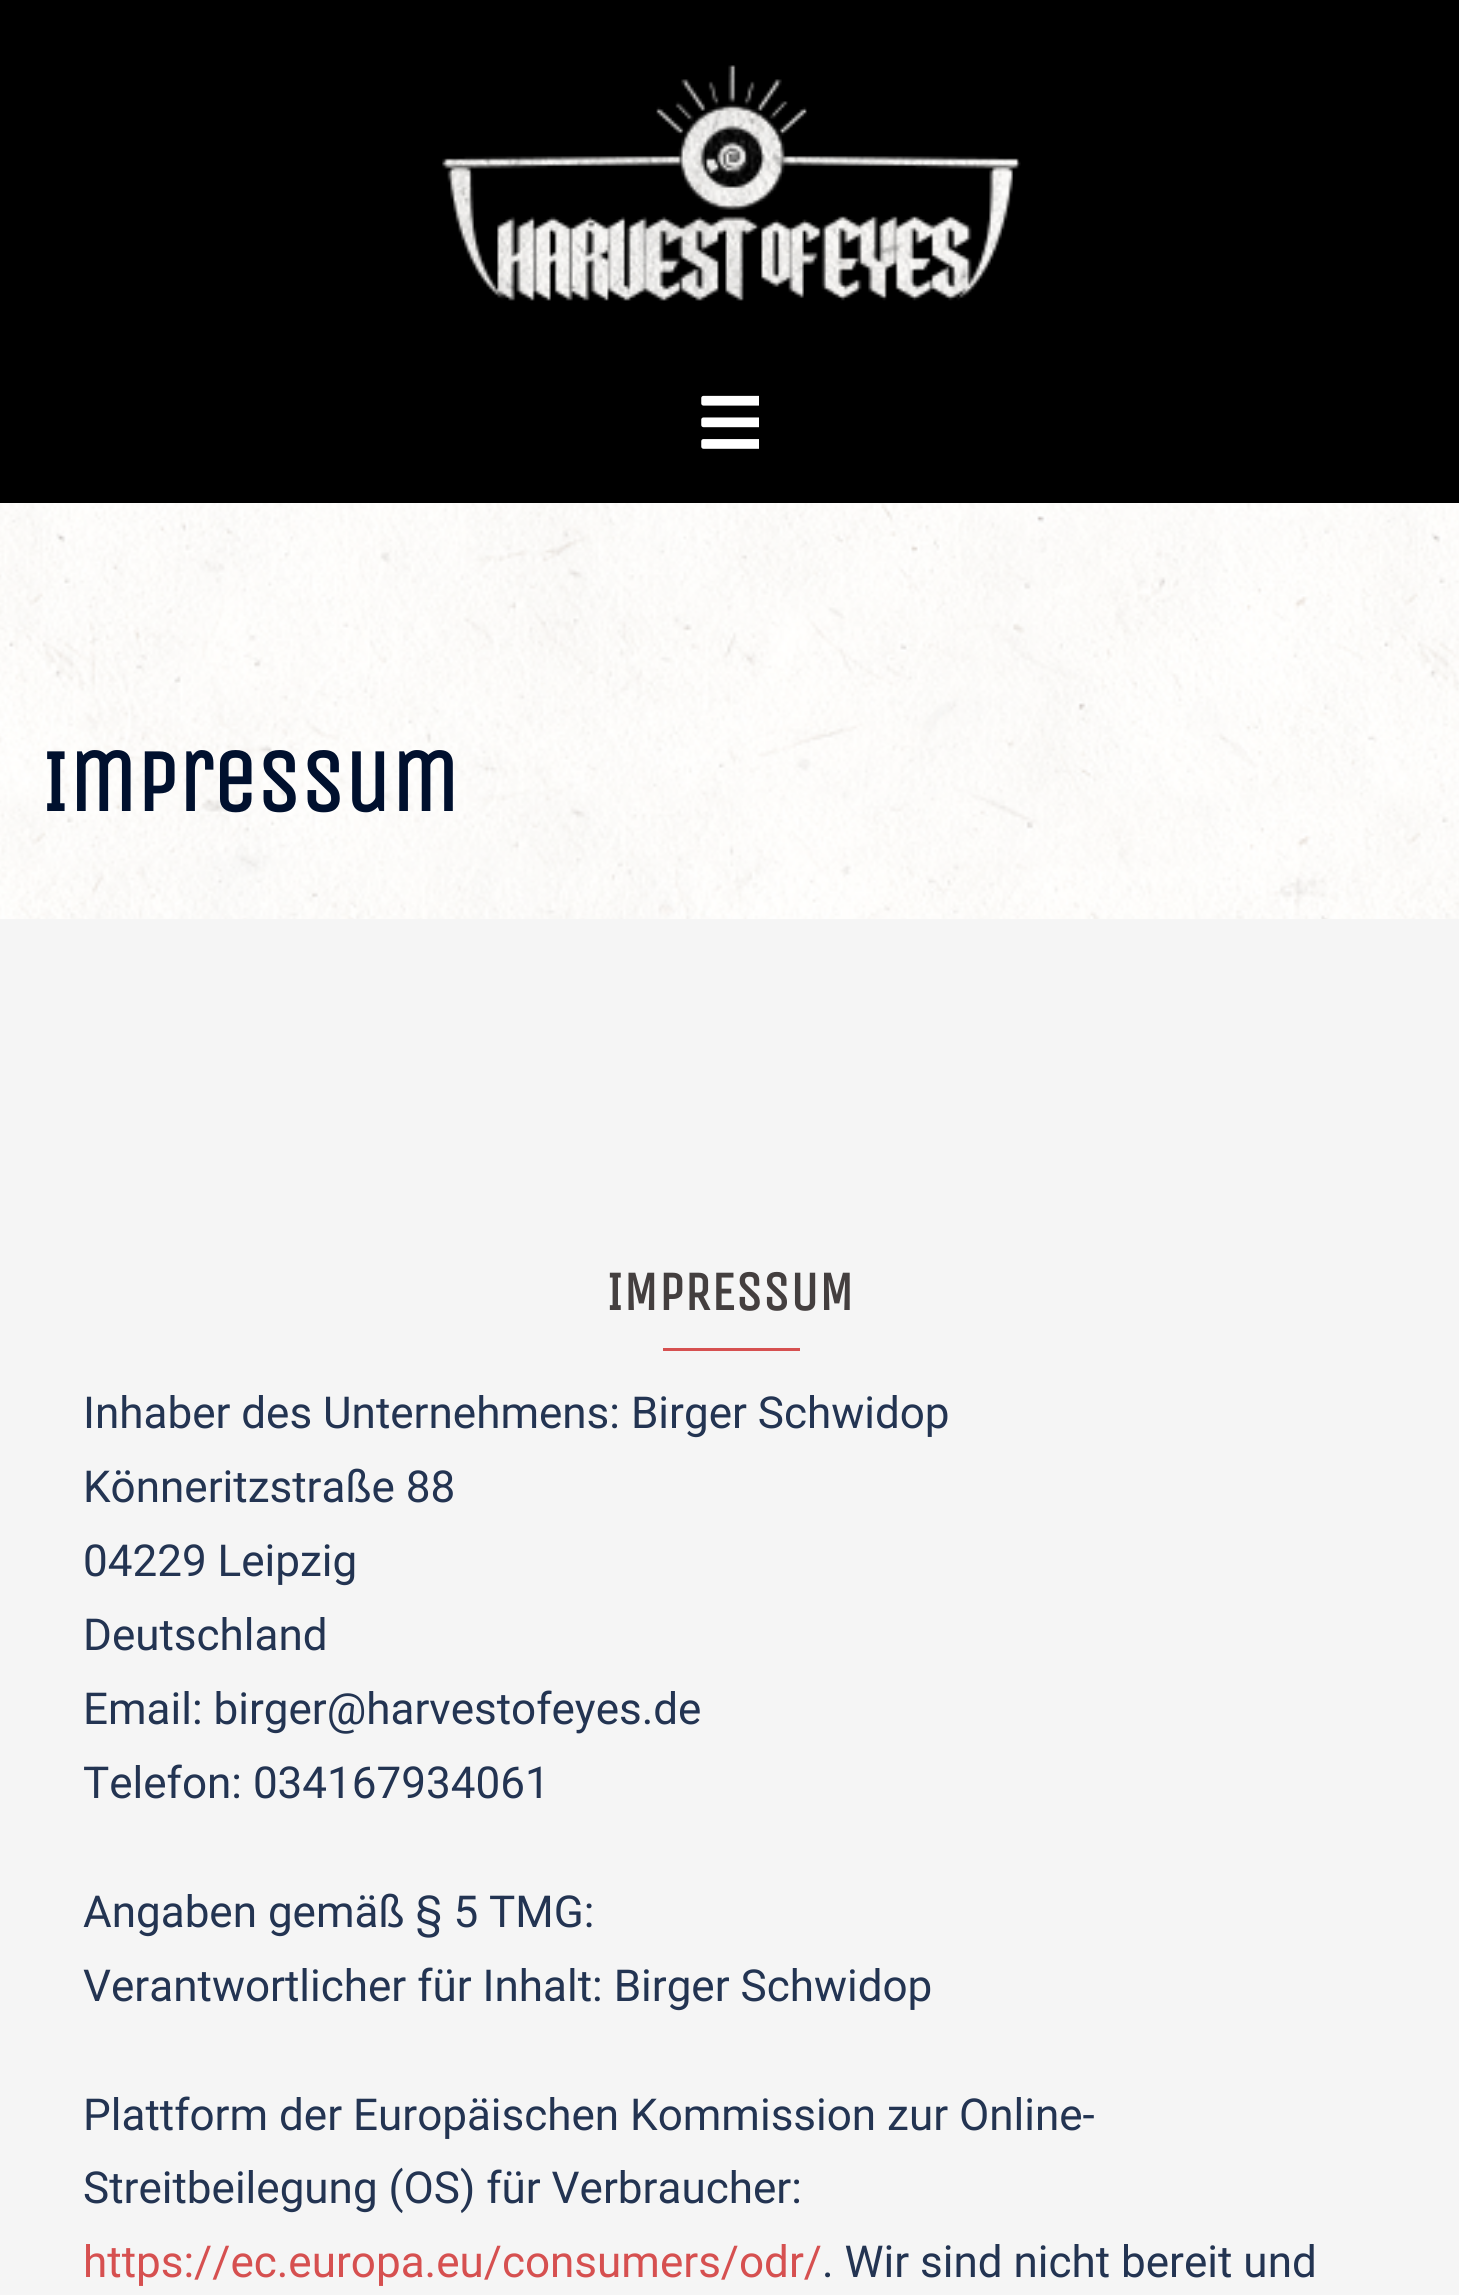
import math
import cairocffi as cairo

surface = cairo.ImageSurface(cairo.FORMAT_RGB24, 1459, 2295)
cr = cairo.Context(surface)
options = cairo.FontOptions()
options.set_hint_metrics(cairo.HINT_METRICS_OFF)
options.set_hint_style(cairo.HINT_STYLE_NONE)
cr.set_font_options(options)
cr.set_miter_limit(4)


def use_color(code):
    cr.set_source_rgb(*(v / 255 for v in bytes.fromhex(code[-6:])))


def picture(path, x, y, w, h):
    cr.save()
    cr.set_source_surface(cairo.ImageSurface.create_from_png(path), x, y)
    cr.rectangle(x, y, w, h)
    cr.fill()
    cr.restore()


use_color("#ffffff")
cr.paint()
picture("img1.png", 0, 503, 1459, 416)
use_color("#000000")
cr.rectangle(0, 0, 1459, 503)
cr.fill()
picture("img2.png", 442, 65, 579, 236)
picture("img3.png", 701, 395, 58, 54)
cr.select_font_face("Unica One", cairo.FONT_SLANT_NORMAL, cairo.FONT_WEIGHT_BOLD)
cr.set_font_size(88)
use_color("#00102e")
cr.move_to(41, 811)
cr.show_text("Impressum")
use_color("#f5f5f5")
cr.rectangle(0, 919, 1459, 1376)
cr.fill()
cr.set_font_size(55)
use_color("#443f3f")
cr.move_to(606, 1310)
cr.show_text("IMPRESSUM")
use_color("#d65050")
cr.rectangle(663, 1348, 137, 3)
cr.fill()
cr.select_font_face("Roboto")
cr.set_font_size(44)
use_color("#233452")
cr.move_to(83, 1428)
cr.show_text("Inhaber des Unternehmens: Birger Schwidop")
cr.move_to(83, 1502)
cr.show_text("Könneritzstraße 88")
cr.move_to(83, 1576)
cr.show_text("04229 Leipzig")
cr.move_to(83, 1650)
cr.show_text("Deutschland")
cr.move_to(83, 1724)
cr.show_text("Email: birger@harvestofeyes.de")
cr.move_to(83, 1798)
cr.show_text("Telefon: 034167934061")
cr.move_to(83, 1927)
cr.show_text("Angaben gemäß § 5 TMG:")
cr.move_to(83, 2001)
cr.show_text("Verantwortlicher für Inhalt: Birger Schwidop")
cr.move_to(83, 2130)
cr.show_text("Plattform der Europäischen Kommission zur Online-")
cr.move_to(83, 2203)
cr.show_text("Streitbeilegung (OS) für Verbraucher:")
use_color("#d65050")
cr.move_to(83, 2277)
cr.show_text("https://ec.europa.eu/consumers/odr/")
use_color("#233452")
cr.move_to(822, 2277)
cr.show_text(". Wir sind nicht bereit und")
surface.write_to_png("result.png")
